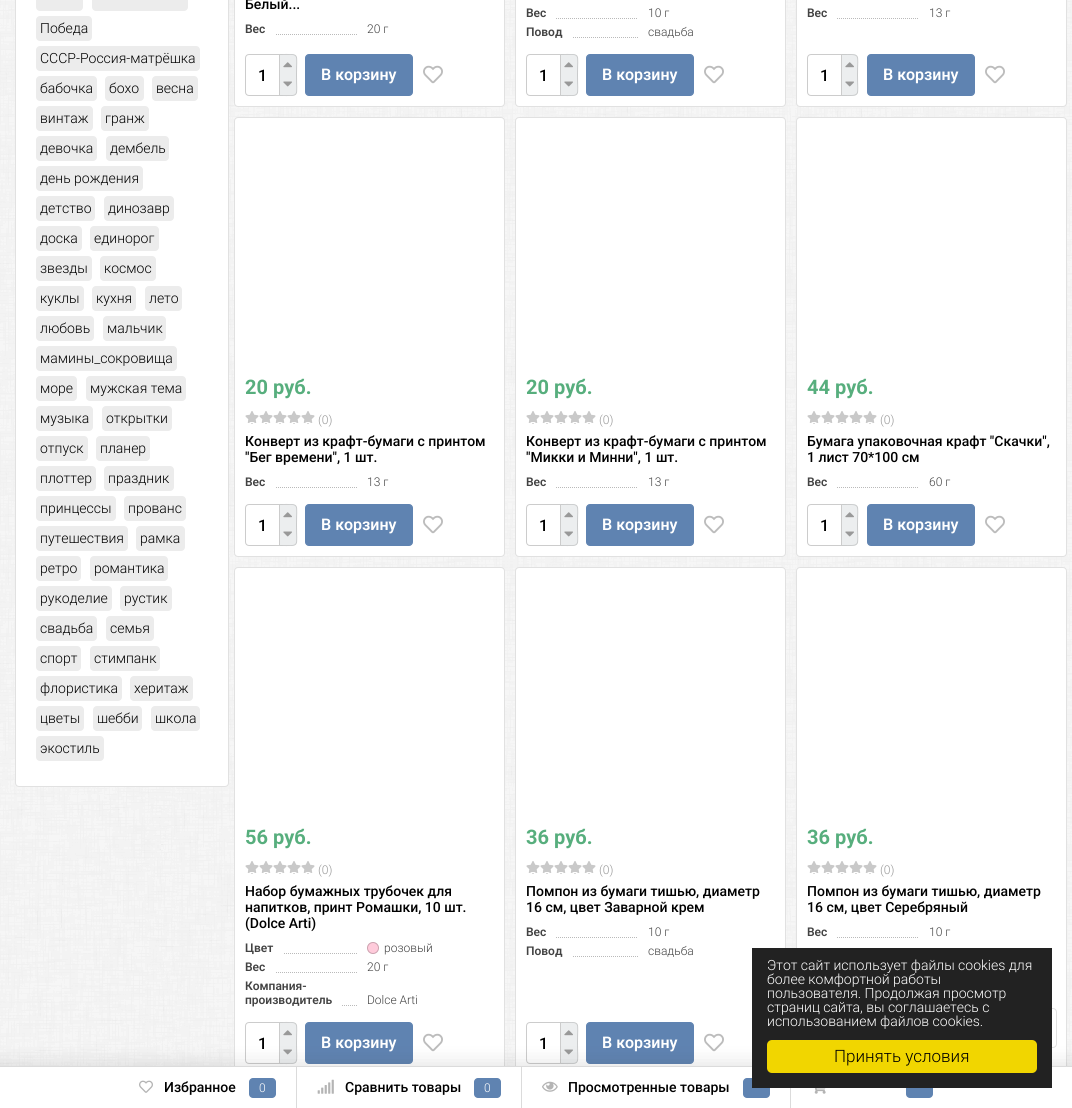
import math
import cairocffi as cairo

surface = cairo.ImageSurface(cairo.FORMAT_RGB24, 1072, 1108)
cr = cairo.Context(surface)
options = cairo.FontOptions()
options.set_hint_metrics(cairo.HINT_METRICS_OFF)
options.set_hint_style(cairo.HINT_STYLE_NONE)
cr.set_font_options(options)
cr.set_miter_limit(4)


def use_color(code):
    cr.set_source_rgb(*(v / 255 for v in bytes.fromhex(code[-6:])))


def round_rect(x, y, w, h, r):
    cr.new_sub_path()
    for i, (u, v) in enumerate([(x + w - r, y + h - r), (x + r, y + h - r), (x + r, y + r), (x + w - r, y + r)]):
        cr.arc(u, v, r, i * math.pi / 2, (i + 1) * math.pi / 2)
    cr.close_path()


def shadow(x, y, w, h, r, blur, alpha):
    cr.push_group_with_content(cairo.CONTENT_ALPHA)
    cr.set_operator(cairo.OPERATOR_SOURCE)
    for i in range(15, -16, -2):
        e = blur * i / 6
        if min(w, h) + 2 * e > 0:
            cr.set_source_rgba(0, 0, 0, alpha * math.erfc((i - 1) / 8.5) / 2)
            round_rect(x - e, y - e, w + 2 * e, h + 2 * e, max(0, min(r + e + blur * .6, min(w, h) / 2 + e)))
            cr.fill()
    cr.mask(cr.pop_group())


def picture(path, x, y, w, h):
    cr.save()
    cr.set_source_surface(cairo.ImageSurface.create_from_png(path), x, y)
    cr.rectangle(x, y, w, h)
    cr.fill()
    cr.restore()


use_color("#ffffff")
cr.paint()
picture("img1.png", 0, 0, 1072, 1066)
use_color("#ffffff")
round_rect(15, -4, 214, 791, 4)
cr.fill()
round_rect(15.5, -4.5, 213, 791, 3.5)
cr.set_source_rgba(0, 0, 0, 0.12)
cr.set_line_width(1)
cr.stroke()
use_color("#ececec")
round_rect(36, -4, 47, 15, 4)
cr.fill()
round_rect(92, -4, 96, 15, 4)
cr.fill()
round_rect(36, 16, 56, 25, 4)
cr.fill()
cr.select_font_face("Roboto Light")
cr.set_font_size(14)
use_color("#000000")
cr.move_to(40, 33)
cr.show_text("Победа")
use_color("#ececec")
round_rect(36, 46, 164, 25, 4)
cr.fill()
use_color("#000000")
cr.move_to(40, 63)
cr.show_text("СССР-Россия-матрёшка")
use_color("#ececec")
round_rect(36, 76, 61, 25, 4)
cr.fill()
use_color("#000000")
cr.move_to(40, 93)
cr.show_text("бабочка")
use_color("#ececec")
round_rect(105, 76, 39, 25, 4)
cr.fill()
use_color("#000000")
cr.move_to(109, 93)
cr.show_text("бохо")
use_color("#ececec")
round_rect(152, 76, 46, 25, 4)
cr.fill()
use_color("#000000")
cr.move_to(156, 93)
cr.show_text("весна")
use_color("#ececec")
round_rect(36, 106, 57, 25, 4)
cr.fill()
use_color("#000000")
cr.move_to(40, 123)
cr.show_text("винтаж")
use_color("#ececec")
round_rect(101, 106, 48, 25, 4)
cr.fill()
use_color("#000000")
cr.move_to(105, 123)
cr.show_text("гранж")
use_color("#ececec")
round_rect(36, 136, 61, 25, 4)
cr.fill()
use_color("#000000")
cr.move_to(40, 153)
cr.show_text("девочка")
use_color("#ececec")
round_rect(106, 136, 63, 25, 4)
cr.fill()
use_color("#000000")
cr.move_to(110, 153)
cr.show_text("дембель")
use_color("#ececec")
round_rect(36, 166, 107, 25, 4)
cr.fill()
use_color("#000000")
cr.move_to(40, 183)
cr.show_text("день рождения")
use_color("#ececec")
round_rect(36, 196, 59, 25, 4)
cr.fill()
use_color("#000000")
cr.move_to(40, 213)
cr.show_text("детство")
use_color("#ececec")
round_rect(104, 196, 70, 25, 4)
cr.fill()
use_color("#000000")
cr.move_to(108, 213)
cr.show_text("динозавр")
use_color("#ececec")
round_rect(36, 226, 46, 25, 4)
cr.fill()
use_color("#000000")
cr.move_to(40, 243)
cr.show_text("доска")
use_color("#ececec")
round_rect(90, 226, 69, 25, 4)
cr.fill()
use_color("#000000")
cr.move_to(94, 243)
cr.show_text("единорог")
use_color("#ececec")
round_rect(36, 256, 56, 25, 4)
cr.fill()
use_color("#000000")
cr.move_to(40, 273)
cr.show_text("звезды")
use_color("#ececec")
round_rect(100, 256, 56, 25, 4)
cr.fill()
use_color("#000000")
cr.move_to(104, 273)
cr.show_text("космос")
use_color("#ececec")
round_rect(36, 286, 48, 25, 4)
cr.fill()
use_color("#000000")
cr.move_to(40, 303)
cr.show_text("куклы")
use_color("#ececec")
round_rect(92, 286, 44, 25, 4)
cr.fill()
use_color("#000000")
cr.move_to(96, 303)
cr.show_text("кухня")
use_color("#ececec")
round_rect(145, 286, 37, 25, 4)
cr.fill()
use_color("#000000")
cr.move_to(149, 303)
cr.show_text("лето")
use_color("#ececec")
round_rect(36, 316, 58, 25, 4)
cr.fill()
use_color("#000000")
cr.move_to(40, 333)
cr.show_text("любовь")
use_color("#ececec")
round_rect(103, 316, 63, 25, 4)
cr.fill()
use_color("#000000")
cr.move_to(107, 333)
cr.show_text("мальчик")
use_color("#ececec")
round_rect(36, 346, 141, 25, 4)
cr.fill()
use_color("#000000")
cr.move_to(40, 363)
cr.show_text("мамины_сокровища")
use_color("#ececec")
round_rect(36, 376, 41, 25, 4)
cr.fill()
use_color("#000000")
cr.move_to(40, 393)
cr.show_text("море")
use_color("#ececec")
round_rect(86, 376, 100, 25, 4)
cr.fill()
use_color("#000000")
cr.move_to(90, 393)
cr.show_text("мужская тема")
use_color("#ececec")
round_rect(36, 406, 57, 25, 4)
cr.fill()
use_color("#000000")
cr.move_to(40, 423)
cr.show_text("музыка")
use_color("#ececec")
round_rect(102, 406, 70, 25, 4)
cr.fill()
use_color("#000000")
cr.move_to(106, 423)
cr.show_text("открытки")
use_color("#ececec")
round_rect(36, 436, 52, 25, 4)
cr.fill()
use_color("#000000")
cr.move_to(40, 453)
cr.show_text("отпуск")
use_color("#ececec")
round_rect(96, 436, 54, 25, 4)
cr.fill()
use_color("#000000")
cr.move_to(100, 453)
cr.show_text("планер")
use_color("#ececec")
round_rect(36, 466, 60, 25, 4)
cr.fill()
use_color("#000000")
cr.move_to(40, 483)
cr.show_text("плоттер")
use_color("#ececec")
round_rect(104, 466, 70, 25, 4)
cr.fill()
use_color("#000000")
cr.move_to(108, 483)
cr.show_text("праздник")
use_color("#ececec")
round_rect(36, 496, 80, 25, 4)
cr.fill()
use_color("#000000")
cr.move_to(40, 513)
cr.show_text("принцессы")
use_color("#ececec")
round_rect(124, 496, 62, 25, 4)
cr.fill()
use_color("#000000")
cr.move_to(128, 513)
cr.show_text("прованс")
use_color("#ececec")
round_rect(36, 526, 92, 25, 4)
cr.fill()
use_color("#000000")
cr.move_to(40, 543)
cr.show_text("путешествия")
use_color("#ececec")
round_rect(136, 526, 49, 25, 4)
cr.fill()
use_color("#000000")
cr.move_to(140, 543)
cr.show_text("рамка")
use_color("#ececec")
round_rect(36, 556, 45, 25, 4)
cr.fill()
use_color("#000000")
cr.move_to(40, 573)
cr.show_text("ретро")
use_color("#ececec")
round_rect(90, 556, 78, 25, 4)
cr.fill()
use_color("#000000")
cr.move_to(94, 573)
cr.show_text("романтика")
use_color("#ececec")
round_rect(36, 586, 76, 25, 4)
cr.fill()
use_color("#000000")
cr.move_to(40, 603)
cr.show_text("рукоделие")
use_color("#ececec")
round_rect(120, 586, 52, 25, 4)
cr.fill()
use_color("#000000")
cr.move_to(124, 603)
cr.show_text("рустик")
use_color("#ececec")
round_rect(36, 616, 61, 25, 4)
cr.fill()
use_color("#000000")
cr.move_to(40, 633)
cr.show_text("свадьба")
use_color("#ececec")
round_rect(106, 616, 48, 25, 4)
cr.fill()
use_color("#000000")
cr.move_to(110, 633)
cr.show_text("семья")
use_color("#ececec")
round_rect(36, 646, 45, 25, 4)
cr.fill()
use_color("#000000")
cr.move_to(40, 663)
cr.show_text("спорт")
use_color("#ececec")
round_rect(90, 646, 70, 25, 4)
cr.fill()
use_color("#000000")
cr.move_to(94, 663)
cr.show_text("стимпанк")
use_color("#ececec")
round_rect(36, 676, 86, 25, 4)
cr.fill()
use_color("#000000")
cr.move_to(40, 693)
cr.show_text("флористика")
use_color("#ececec")
round_rect(130, 676, 63, 25, 4)
cr.fill()
use_color("#000000")
cr.move_to(134, 693)
cr.show_text("херитаж")
use_color("#ececec")
round_rect(36, 706, 48, 25, 4)
cr.fill()
use_color("#000000")
cr.move_to(40, 723)
cr.show_text("цветы")
use_color("#ececec")
round_rect(93, 706, 49, 25, 4)
cr.fill()
use_color("#000000")
cr.move_to(97, 723)
cr.show_text("шебби")
use_color("#ececec")
round_rect(151, 706, 49, 25, 4)
cr.fill()
use_color("#000000")
cr.move_to(155, 723)
cr.show_text("школа")
use_color("#ececec")
round_rect(36, 736, 68, 25, 4)
cr.fill()
use_color("#000000")
cr.move_to(40, 753)
cr.show_text("экостиль")
use_color("#ffffff")
round_rect(234, -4, 271, 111, 4)
cr.fill()
round_rect(234.5, -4.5, 270, 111, 3.5)
cr.set_source_rgba(0, 0, 0, 0.12)
cr.stroke()
cr.select_font_face("Roboto Medium")
use_color("#000000")
cr.move_to(245, 9)
cr.show_text("Белый...")
cr.select_font_face("Roboto SemiBold")
cr.set_font_size(12)
use_color("#434343")
cr.move_to(245, 33)
cr.show_text("Вес")
cr.new_path()
cr.move_to(276, 34.5)
cr.line_to(388, 34.5)
use_color("#bababa")
cr.set_dash([1, 1])
cr.stroke()
use_color("#ffffff")
cr.rectangle(358, 34, 29, 1)
cr.fill()
cr.select_font_face("Roboto Light")
use_color("#434343")
cr.move_to(367, 33)
cr.show_text("20 г")
cr.new_path()
cr.move_to(249, 54.5)
cr.line_to(279.5, 54.5)
cr.line_to(279.5, 95.5)
cr.line_to(249, 95.5)
cr.curve_to(247, 95.5, 245.5, 94, 245.5, 92)
cr.line_to(245.5, 58)
cr.curve_to(245.5, 56, 247, 54.5, 249, 54.5)
cr.close_path()
use_color("#cccccc")
cr.set_dash([])
cr.stroke()
cr.select_font_face("Roboto Medium")
cr.set_font_size(16)
use_color("#000000")
cr.move_to(258, 81)
cr.show_text("1")
use_color("#eceeef")
cr.new_path()
cr.move_to(280, 54)
cr.line_to(293, 54)
cr.curve_to(295, 54, 297, 56, 297, 58)
cr.line_to(297, 92)
cr.curve_to(297, 94, 295, 96, 293, 96)
cr.line_to(280, 96)
cr.close_path()
cr.fill()
cr.set_source_rgba(0, 0, 0, 0.15)
cr.set_fill_rule(cairo.FILL_RULE_EVEN_ODD)
cr.new_path()
cr.move_to(280, 54)
cr.curve_to(301, 54, 297, 52, 297, 75)
cr.curve_to(297, 98, 301, 96, 280, 96)
cr.close_path()
cr.move_to(280, 55)
cr.curve_to(300, 55, 296, 52, 296, 75)
cr.curve_to(296, 98, 300, 95, 280, 95)
cr.close_path()
cr.fill()
picture("img2.png", 283, 62, 9, 6)
picture("img3.png", 283, 81, 9, 6)
use_color("#5f83b1")
round_rect(305.5, 54.5, 107, 41, 3.5)
cr.fill_preserve()
cr.stroke()
cr.select_font_face("Roboto SemiBold")
use_color("#ffffff")
cr.move_to(321, 80)
cr.show_text("В корзину")
picture("img4.png", 423, 65, 20, 19)
round_rect(515, -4, 271, 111, 4)
cr.fill()
round_rect(515.5, -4.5, 270, 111, 3.5)
cr.set_source_rgba(0, 0, 0, 0.12)
cr.stroke()
cr.set_font_size(12)
use_color("#434343")
cr.move_to(526, 17)
cr.show_text("Вес")
cr.new_path()
cr.move_to(556, 18.5)
cr.line_to(668, 18.5)
use_color("#bababa")
cr.set_dash([1, 1])
cr.stroke()
use_color("#ffffff")
cr.rectangle(638, 18, 29, 1)
cr.fill()
cr.select_font_face("Roboto Light")
use_color("#434343")
cr.move_to(648, 17)
cr.show_text("10 г")
cr.select_font_face("Roboto SemiBold")
cr.move_to(526, 36)
cr.show_text("Повод")
cr.new_path()
cr.move_to(573, 37.5)
cr.line_to(685, 37.5)
use_color("#bababa")
cr.stroke()
use_color("#ffffff")
cr.rectangle(639, 37, 45, 1)
cr.fill()
cr.select_font_face("Roboto Light")
use_color("#434343")
cr.move_to(648, 36)
cr.show_text("свадьба")
cr.new_path()
cr.move_to(530, 54.5)
cr.line_to(560.5, 54.5)
cr.line_to(560.5, 95.5)
cr.line_to(530, 95.5)
cr.curve_to(528, 95.5, 526.5, 94, 526.5, 92)
cr.line_to(526.5, 58)
cr.curve_to(526.5, 56, 528, 54.5, 530, 54.5)
cr.close_path()
use_color("#cccccc")
cr.set_dash([])
cr.stroke()
cr.select_font_face("Roboto Medium")
cr.set_font_size(16)
use_color("#000000")
cr.move_to(539, 81)
cr.show_text("1")
use_color("#eceeef")
cr.new_path()
cr.move_to(561, 54)
cr.line_to(574, 54)
cr.curve_to(576, 54, 578, 56, 578, 58)
cr.line_to(578, 92)
cr.curve_to(578, 94, 576, 96, 574, 96)
cr.line_to(561, 96)
cr.close_path()
cr.fill()
cr.set_source_rgba(0, 0, 0, 0.15)
cr.new_path()
cr.move_to(561, 54)
cr.curve_to(582, 54, 578, 52, 578, 75)
cr.curve_to(578, 98, 582, 96, 561, 96)
cr.close_path()
cr.move_to(561, 55)
cr.curve_to(581, 55, 577, 52, 577, 75)
cr.curve_to(577, 98, 581, 95, 561, 95)
cr.close_path()
cr.fill()
picture("img2.png", 564, 62, 9, 6)
picture("img3.png", 564, 81, 9, 6)
use_color("#5f83b1")
round_rect(586.5, 54.5, 107, 41, 3.5)
cr.fill_preserve()
cr.stroke()
cr.select_font_face("Roboto SemiBold")
use_color("#ffffff")
cr.move_to(602, 80)
cr.show_text("В корзину")
picture("img4.png", 704, 65, 20, 19)
round_rect(796, -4, 271, 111, 4)
cr.fill()
round_rect(796.5, -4.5, 270, 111, 3.5)
cr.set_source_rgba(0, 0, 0, 0.12)
cr.stroke()
cr.set_font_size(12)
use_color("#434343")
cr.move_to(807, 17)
cr.show_text("Вес")
cr.new_path()
cr.move_to(837, 18.5)
cr.line_to(949, 18.5)
use_color("#bababa")
cr.set_dash([1, 1])
cr.stroke()
use_color("#ffffff")
cr.rectangle(919, 18, 29, 1)
cr.fill()
cr.select_font_face("Roboto Light")
use_color("#434343")
cr.move_to(929, 17)
cr.show_text("13 г")
cr.new_path()
cr.move_to(811, 54.5)
cr.line_to(841.5, 54.5)
cr.line_to(841.5, 95.5)
cr.line_to(811, 95.5)
cr.curve_to(809, 95.5, 807.5, 94, 807.5, 92)
cr.line_to(807.5, 58)
cr.curve_to(807.5, 56, 809, 54.5, 811, 54.5)
cr.close_path()
use_color("#cccccc")
cr.set_dash([])
cr.stroke()
cr.select_font_face("Roboto Medium")
cr.set_font_size(16)
use_color("#000000")
cr.move_to(820, 81)
cr.show_text("1")
use_color("#eceeef")
cr.new_path()
cr.move_to(842, 54)
cr.line_to(854, 54)
cr.curve_to(856, 54, 858, 56, 858, 58)
cr.line_to(858, 92)
cr.curve_to(858, 94, 856, 96, 854, 96)
cr.line_to(842, 96)
cr.close_path()
cr.fill()
cr.set_source_rgba(0, 0, 0, 0.15)
cr.new_path()
cr.move_to(842, 54)
cr.curve_to(862, 54, 858, 53, 858, 75)
cr.curve_to(858, 97, 862, 96, 842, 96)
cr.close_path()
cr.move_to(842, 55)
cr.curve_to(861, 55, 857, 53, 857, 75)
cr.curve_to(857, 97, 861, 95, 842, 95)
cr.close_path()
cr.fill()
picture("img2.png", 845, 62, 9, 6)
picture("img3.png", 845, 81, 9, 6)
use_color("#5f83b1")
round_rect(867.5, 54.5, 107, 41, 3.5)
cr.fill_preserve()
cr.stroke()
cr.select_font_face("Roboto SemiBold")
use_color("#ffffff")
cr.move_to(883, 80)
cr.show_text("В корзину")
picture("img4.png", 985, 65, 20, 19)
round_rect(234, 117, 271, 440, 4)
cr.fill()
round_rect(234.5, 117.5, 270, 439, 3.5)
cr.set_source_rgba(0, 0, 0, 0.12)
cr.stroke()
cr.select_font_face("Roboto", cairo.FONT_SLANT_NORMAL, cairo.FONT_WEIGHT_BOLD)
cr.set_font_size(20)
use_color("#57ae7d")
cr.move_to(245, 394)
cr.show_text("20 руб.")
picture("img5.png", 245, 411, 14, 13)
picture("img5.png", 259, 411, 14, 13)
picture("img5.png", 273, 411, 14, 13)
picture("img5.png", 287, 411, 14, 13)
picture("img5.png", 301, 411, 14, 13)
cr.select_font_face("Roboto Light")
cr.set_font_size(12)
use_color("#979797")
cr.move_to(318, 424)
cr.show_text("(0)")
cr.select_font_face("Roboto Medium")
cr.set_font_size(14)
use_color("#000000")
cr.move_to(245, 446)
cr.show_text("Конверт из крафт-бумаги с принтом")
cr.move_to(245, 462)
cr.show_text("\"Бег времени\", 1 шт.")
cr.select_font_face("Roboto SemiBold")
cr.set_font_size(12)
use_color("#434343")
cr.move_to(245, 486)
cr.show_text("Вес")
cr.new_path()
cr.move_to(276, 487.5)
cr.line_to(388, 487.5)
use_color("#bababa")
cr.set_dash([1, 1])
cr.stroke()
use_color("#ffffff")
cr.rectangle(358, 487, 29, 1)
cr.fill()
cr.select_font_face("Roboto Light")
use_color("#434343")
cr.move_to(367, 486)
cr.show_text("13 г")
cr.new_path()
cr.move_to(249, 504.5)
cr.line_to(279.5, 504.5)
cr.line_to(279.5, 545.5)
cr.line_to(249, 545.5)
cr.curve_to(247, 545.5, 245.5, 544, 245.5, 542)
cr.line_to(245.5, 508)
cr.curve_to(245.5, 506, 247, 504.5, 249, 504.5)
cr.close_path()
use_color("#cccccc")
cr.set_dash([])
cr.stroke()
cr.select_font_face("Roboto Medium")
cr.set_font_size(16)
use_color("#000000")
cr.move_to(258, 531)
cr.show_text("1")
use_color("#eceeef")
cr.new_path()
cr.move_to(280, 504)
cr.line_to(293, 504)
cr.curve_to(295, 504, 297, 506, 297, 508)
cr.line_to(297, 542)
cr.curve_to(297, 544, 295, 546, 293, 546)
cr.line_to(280, 546)
cr.close_path()
cr.fill()
cr.set_source_rgba(0, 0, 0, 0.15)
cr.new_path()
cr.move_to(280, 504)
cr.curve_to(301, 504, 297, 502, 297, 525)
cr.curve_to(297, 548, 301, 546, 280, 546)
cr.close_path()
cr.move_to(280, 505)
cr.curve_to(300, 505, 296, 502, 296, 525)
cr.curve_to(296, 548, 300, 545, 280, 545)
cr.close_path()
cr.fill()
picture("img2.png", 283, 512, 9, 6)
picture("img3.png", 283, 531, 9, 6)
use_color("#5f83b1")
round_rect(305.5, 504.5, 107, 41, 3.5)
cr.fill_preserve()
cr.stroke()
cr.select_font_face("Roboto SemiBold")
use_color("#ffffff")
cr.move_to(321, 530)
cr.show_text("В корзину")
picture("img4.png", 423, 515, 20, 19)
round_rect(515, 117, 271, 440, 4)
cr.fill()
round_rect(515.5, 117.5, 270, 439, 3.5)
cr.set_source_rgba(0, 0, 0, 0.12)
cr.stroke()
cr.select_font_face("Roboto", cairo.FONT_SLANT_NORMAL, cairo.FONT_WEIGHT_BOLD)
cr.set_font_size(20)
use_color("#57ae7d")
cr.move_to(526, 394)
cr.show_text("20 руб.")
picture("img5.png", 526, 411, 14, 13)
picture("img5.png", 540, 411, 14, 13)
picture("img5.png", 554, 411, 14, 13)
picture("img5.png", 568, 411, 14, 13)
picture("img5.png", 582, 411, 14, 13)
cr.select_font_face("Roboto Light")
cr.set_font_size(12)
use_color("#979797")
cr.move_to(599, 424)
cr.show_text("(0)")
cr.select_font_face("Roboto Medium")
cr.set_font_size(14)
use_color("#000000")
cr.move_to(526, 446)
cr.show_text("Конверт из крафт-бумаги с принтом")
cr.move_to(526, 462)
cr.show_text("\"Микки и Минни\", 1 шт.")
cr.select_font_face("Roboto SemiBold")
cr.set_font_size(12)
use_color("#434343")
cr.move_to(526, 486)
cr.show_text("Вес")
cr.new_path()
cr.move_to(556, 487.5)
cr.line_to(668, 487.5)
use_color("#bababa")
cr.set_dash([1, 1])
cr.stroke()
use_color("#ffffff")
cr.rectangle(638, 487, 29, 1)
cr.fill()
cr.select_font_face("Roboto Light")
use_color("#434343")
cr.move_to(648, 486)
cr.show_text("13 г")
cr.new_path()
cr.move_to(530, 504.5)
cr.line_to(560.5, 504.5)
cr.line_to(560.5, 545.5)
cr.line_to(530, 545.5)
cr.curve_to(528, 545.5, 526.5, 544, 526.5, 542)
cr.line_to(526.5, 508)
cr.curve_to(526.5, 506, 528, 504.5, 530, 504.5)
cr.close_path()
use_color("#cccccc")
cr.set_dash([])
cr.stroke()
cr.select_font_face("Roboto Medium")
cr.set_font_size(16)
use_color("#000000")
cr.move_to(539, 531)
cr.show_text("1")
use_color("#eceeef")
cr.new_path()
cr.move_to(561, 504)
cr.line_to(574, 504)
cr.curve_to(576, 504, 578, 506, 578, 508)
cr.line_to(578, 542)
cr.curve_to(578, 544, 576, 546, 574, 546)
cr.line_to(561, 546)
cr.close_path()
cr.fill()
cr.set_source_rgba(0, 0, 0, 0.15)
cr.new_path()
cr.move_to(561, 504)
cr.curve_to(582, 504, 578, 502, 578, 525)
cr.curve_to(578, 548, 582, 546, 561, 546)
cr.close_path()
cr.move_to(561, 505)
cr.curve_to(581, 505, 577, 502, 577, 525)
cr.curve_to(577, 548, 581, 545, 561, 545)
cr.close_path()
cr.fill()
picture("img2.png", 564, 512, 9, 6)
picture("img3.png", 564, 531, 9, 6)
use_color("#5f83b1")
round_rect(586.5, 504.5, 107, 41, 3.5)
cr.fill_preserve()
cr.stroke()
cr.select_font_face("Roboto SemiBold")
use_color("#ffffff")
cr.move_to(602, 530)
cr.show_text("В корзину")
picture("img4.png", 704, 515, 20, 19)
round_rect(796, 117, 271, 440, 4)
cr.fill()
round_rect(796.5, 117.5, 270, 439, 3.5)
cr.set_source_rgba(0, 0, 0, 0.12)
cr.stroke()
cr.select_font_face("Roboto", cairo.FONT_SLANT_NORMAL, cairo.FONT_WEIGHT_BOLD)
cr.set_font_size(20)
use_color("#57ae7d")
cr.move_to(807, 394)
cr.show_text("44 руб.")
picture("img5.png", 807, 411, 14, 13)
picture("img5.png", 821, 411, 14, 13)
picture("img5.png", 835, 411, 14, 13)
picture("img5.png", 849, 411, 14, 13)
picture("img5.png", 863, 411, 14, 13)
cr.select_font_face("Roboto Light")
cr.set_font_size(12)
use_color("#979797")
cr.move_to(880, 424)
cr.show_text("(0)")
cr.select_font_face("Roboto Medium")
cr.set_font_size(14)
use_color("#000000")
cr.move_to(807, 446)
cr.show_text("Бумага упаковочная крафт \"Скачки\",")
cr.move_to(807, 462)
cr.show_text("1 лист 70*100 см")
cr.select_font_face("Roboto SemiBold")
cr.set_font_size(12)
use_color("#434343")
cr.move_to(807, 486)
cr.show_text("Вес")
cr.new_path()
cr.move_to(837, 487.5)
cr.line_to(949, 487.5)
use_color("#bababa")
cr.set_dash([1, 1])
cr.stroke()
use_color("#ffffff")
cr.rectangle(919, 487, 29, 1)
cr.fill()
cr.select_font_face("Roboto Light")
use_color("#434343")
cr.move_to(929, 486)
cr.show_text("60 г")
cr.new_path()
cr.move_to(811, 504.5)
cr.line_to(841.5, 504.5)
cr.line_to(841.5, 545.5)
cr.line_to(811, 545.5)
cr.curve_to(809, 545.5, 807.5, 544, 807.5, 542)
cr.line_to(807.5, 508)
cr.curve_to(807.5, 506, 809, 504.5, 811, 504.5)
cr.close_path()
use_color("#cccccc")
cr.set_dash([])
cr.stroke()
cr.select_font_face("Roboto Medium")
cr.set_font_size(16)
use_color("#000000")
cr.move_to(820, 531)
cr.show_text("1")
use_color("#eceeef")
cr.new_path()
cr.move_to(842, 504)
cr.line_to(854, 504)
cr.curve_to(856, 504, 858, 506, 858, 508)
cr.line_to(858, 542)
cr.curve_to(858, 544, 856, 546, 854, 546)
cr.line_to(842, 546)
cr.close_path()
cr.fill()
cr.set_source_rgba(0, 0, 0, 0.15)
cr.new_path()
cr.move_to(842, 504)
cr.curve_to(862, 504, 858, 503, 858, 525)
cr.curve_to(858, 547, 862, 546, 842, 546)
cr.close_path()
cr.move_to(842, 505)
cr.curve_to(861, 505, 857, 503, 857, 525)
cr.curve_to(857, 547, 861, 545, 842, 545)
cr.close_path()
cr.fill()
picture("img2.png", 845, 512, 9, 6)
picture("img3.png", 845, 531, 9, 6)
use_color("#5f83b1")
round_rect(867.5, 504.5, 107, 41, 3.5)
cr.fill_preserve()
cr.stroke()
cr.select_font_face("Roboto SemiBold")
use_color("#ffffff")
cr.move_to(883, 530)
cr.show_text("В корзину")
picture("img4.png", 985, 515, 20, 19)
round_rect(234, 567, 271, 508, 4)
cr.fill()
round_rect(234.5, 567.5, 270, 507, 3.5)
cr.set_source_rgba(0, 0, 0, 0.12)
cr.stroke()
cr.select_font_face("Roboto", cairo.FONT_SLANT_NORMAL, cairo.FONT_WEIGHT_BOLD)
cr.set_font_size(20)
use_color("#57ae7d")
cr.move_to(245, 844)
cr.show_text("56 руб.")
picture("img5.png", 245, 861, 14, 13)
picture("img5.png", 259, 861, 14, 13)
picture("img5.png", 273, 861, 14, 13)
picture("img5.png", 287, 861, 14, 13)
picture("img5.png", 301, 861, 14, 13)
cr.select_font_face("Roboto Light")
cr.set_font_size(12)
use_color("#979797")
cr.move_to(318, 874)
cr.show_text("(0)")
cr.select_font_face("Roboto Medium")
cr.set_font_size(14)
use_color("#000000")
cr.move_to(245, 896)
cr.show_text("Набор бумажных трубочек для")
cr.move_to(245, 912)
cr.show_text("напитков, принт Ромашки, 10 шт.")
cr.move_to(245, 928)
cr.show_text("(Dolce Arti)")
cr.select_font_face("Roboto SemiBold")
cr.set_font_size(12)
use_color("#434343")
cr.move_to(245, 952)
cr.show_text("Цвет")
cr.new_path()
cr.move_to(284, 953.5)
cr.line_to(396, 953.5)
use_color("#bababa")
cr.set_dash([1, 1])
cr.stroke()
use_color("#ffffff")
cr.rectangle(358, 953, 37, 1)
cr.fill()
use_color("#ffcbdb")
cr.arc(373, 948, 6, 0, 2 * math.pi)
cr.fill()
cr.arc(373, 948, 5.5, 0, 2 * math.pi)
cr.set_source_rgba(0, 0, 0, 0.2)
cr.set_dash([])
cr.stroke()
cr.select_font_face("Roboto Light")
use_color("#434343")
cr.move_to(384, 952)
cr.show_text("розовый")
cr.select_font_face("Roboto SemiBold")
cr.move_to(245, 971)
cr.show_text("Вес")
cr.new_path()
cr.move_to(276, 972.5)
cr.line_to(388, 972.5)
use_color("#bababa")
cr.set_dash([1, 1])
cr.stroke()
use_color("#ffffff")
cr.rectangle(358, 972, 29, 1)
cr.fill()
cr.select_font_face("Roboto Light")
use_color("#434343")
cr.move_to(367, 971)
cr.show_text("20 г")
cr.select_font_face("Roboto SemiBold")
cr.move_to(245, 990)
cr.show_text("Компания-")
cr.move_to(245, 1004)
cr.show_text("производитель")
cr.new_path()
cr.move_to(342, 1005.5)
cr.line_to(454, 1005.5)
use_color("#bababa")
cr.stroke()
use_color("#ffffff")
cr.rectangle(358, 1005, 95, 1)
cr.fill()
cr.select_font_face("Roboto Light")
use_color("#434343")
cr.move_to(367, 1004)
cr.show_text("Dolce Arti")
cr.new_path()
cr.move_to(249, 1022.5)
cr.line_to(279.5, 1022.5)
cr.line_to(279.5, 1063.5)
cr.line_to(249, 1063.5)
cr.curve_to(247, 1063.5, 245.5, 1062, 245.5, 1060)
cr.line_to(245.5, 1026)
cr.curve_to(245.5, 1024, 247, 1022.5, 249, 1022.5)
cr.close_path()
use_color("#cccccc")
cr.set_dash([])
cr.stroke()
cr.select_font_face("Roboto Medium")
cr.set_font_size(16)
use_color("#000000")
cr.move_to(258, 1049)
cr.show_text("1")
use_color("#eceeef")
cr.new_path()
cr.move_to(280, 1022)
cr.line_to(293, 1022)
cr.curve_to(295, 1022, 297, 1024, 297, 1026)
cr.line_to(297, 1060)
cr.curve_to(297, 1062, 295, 1064, 293, 1064)
cr.line_to(280, 1064)
cr.close_path()
cr.fill()
cr.set_source_rgba(0, 0, 0, 0.15)
cr.new_path()
cr.move_to(280, 1022)
cr.curve_to(301, 1022, 297, 1020, 297, 1043)
cr.curve_to(297, 1066, 301, 1064, 280, 1064)
cr.close_path()
cr.move_to(280, 1023)
cr.curve_to(300, 1023, 296, 1020, 296, 1043)
cr.curve_to(296, 1066, 300, 1063, 280, 1063)
cr.close_path()
cr.fill()
picture("img2.png", 283, 1030, 9, 6)
picture("img3.png", 283, 1049, 9, 6)
use_color("#5f83b1")
round_rect(305.5, 1022.5, 107, 41, 3.5)
cr.fill_preserve()
cr.stroke()
cr.select_font_face("Roboto SemiBold")
use_color("#ffffff")
cr.move_to(321, 1048)
cr.show_text("В корзину")
picture("img4.png", 423, 1033, 20, 19)
round_rect(515, 567, 271, 508, 4)
cr.fill()
round_rect(515.5, 567.5, 270, 507, 3.5)
cr.set_source_rgba(0, 0, 0, 0.12)
cr.stroke()
cr.select_font_face("Roboto", cairo.FONT_SLANT_NORMAL, cairo.FONT_WEIGHT_BOLD)
cr.set_font_size(20)
use_color("#57ae7d")
cr.move_to(526, 844)
cr.show_text("36 руб.")
picture("img5.png", 526, 861, 14, 13)
picture("img5.png", 540, 861, 14, 13)
picture("img5.png", 554, 861, 14, 13)
picture("img5.png", 568, 861, 14, 13)
picture("img5.png", 582, 861, 14, 13)
cr.select_font_face("Roboto Light")
cr.set_font_size(12)
use_color("#979797")
cr.move_to(599, 874)
cr.show_text("(0)")
cr.select_font_face("Roboto Medium")
cr.set_font_size(14)
use_color("#000000")
cr.move_to(526, 896)
cr.show_text("Помпон из бумаги тишью, диаметр")
cr.move_to(526, 912)
cr.show_text("16 см, цвет Заварной крем")
cr.select_font_face("Roboto SemiBold")
cr.set_font_size(12)
use_color("#434343")
cr.move_to(526, 936)
cr.show_text("Вес")
cr.new_path()
cr.move_to(556, 937.5)
cr.line_to(668, 937.5)
use_color("#bababa")
cr.set_dash([1, 1])
cr.stroke()
use_color("#ffffff")
cr.rectangle(638, 937, 29, 1)
cr.fill()
cr.select_font_face("Roboto Light")
use_color("#434343")
cr.move_to(648, 936)
cr.show_text("10 г")
cr.select_font_face("Roboto SemiBold")
cr.move_to(526, 955)
cr.show_text("Повод")
cr.new_path()
cr.move_to(573, 956.5)
cr.line_to(685, 956.5)
use_color("#bababa")
cr.stroke()
use_color("#ffffff")
cr.rectangle(639, 956, 45, 1)
cr.fill()
cr.select_font_face("Roboto Light")
use_color("#434343")
cr.move_to(648, 955)
cr.show_text("свадьба")
cr.new_path()
cr.move_to(530, 1022.5)
cr.line_to(560.5, 1022.5)
cr.line_to(560.5, 1063.5)
cr.line_to(530, 1063.5)
cr.curve_to(528, 1063.5, 526.5, 1062, 526.5, 1060)
cr.line_to(526.5, 1026)
cr.curve_to(526.5, 1024, 528, 1022.5, 530, 1022.5)
cr.close_path()
use_color("#cccccc")
cr.set_dash([])
cr.stroke()
cr.select_font_face("Roboto Medium")
cr.set_font_size(16)
use_color("#000000")
cr.move_to(539, 1049)
cr.show_text("1")
use_color("#eceeef")
cr.new_path()
cr.move_to(561, 1022)
cr.line_to(574, 1022)
cr.curve_to(576, 1022, 578, 1024, 578, 1026)
cr.line_to(578, 1060)
cr.curve_to(578, 1062, 576, 1064, 574, 1064)
cr.line_to(561, 1064)
cr.close_path()
cr.fill()
cr.set_source_rgba(0, 0, 0, 0.15)
cr.new_path()
cr.move_to(561, 1022)
cr.curve_to(582, 1022, 578, 1020, 578, 1043)
cr.curve_to(578, 1066, 582, 1064, 561, 1064)
cr.close_path()
cr.move_to(561, 1023)
cr.curve_to(581, 1023, 577, 1020, 577, 1043)
cr.curve_to(577, 1066, 581, 1063, 561, 1063)
cr.close_path()
cr.fill()
picture("img2.png", 564, 1030, 9, 6)
picture("img3.png", 564, 1049, 9, 6)
use_color("#5f83b1")
round_rect(586.5, 1022.5, 107, 41, 3.5)
cr.fill_preserve()
cr.stroke()
cr.select_font_face("Roboto SemiBold")
use_color("#ffffff")
cr.move_to(602, 1048)
cr.show_text("В корзину")
picture("img4.png", 704, 1033, 20, 19)
round_rect(796, 567, 271, 508, 4)
cr.fill()
round_rect(796.5, 567.5, 270, 507, 3.5)
cr.set_source_rgba(0, 0, 0, 0.12)
cr.stroke()
cr.select_font_face("Roboto", cairo.FONT_SLANT_NORMAL, cairo.FONT_WEIGHT_BOLD)
cr.set_font_size(20)
use_color("#57ae7d")
cr.move_to(807, 844)
cr.show_text("36 руб.")
picture("img5.png", 807, 861, 14, 13)
picture("img5.png", 821, 861, 14, 13)
picture("img5.png", 835, 861, 14, 13)
picture("img5.png", 849, 861, 14, 13)
picture("img5.png", 863, 861, 14, 13)
cr.select_font_face("Roboto Light")
cr.set_font_size(12)
use_color("#979797")
cr.move_to(880, 874)
cr.show_text("(0)")
cr.select_font_face("Roboto Medium")
cr.set_font_size(14)
use_color("#000000")
cr.move_to(807, 896)
cr.show_text("Помпон из бумаги тишью, диаметр")
cr.move_to(807, 912)
cr.show_text("16 см, цвет Серебряный")
cr.select_font_face("Roboto SemiBold")
cr.set_font_size(12)
use_color("#434343")
cr.move_to(807, 936)
cr.show_text("Вес")
cr.new_path()
cr.move_to(837, 937.5)
cr.line_to(949, 937.5)
use_color("#bababa")
cr.set_dash([1, 1])
cr.stroke()
use_color("#ffffff")
cr.rectangle(919, 937, 29, 1)
cr.fill()
cr.select_font_face("Roboto Light")
use_color("#434343")
cr.move_to(929, 936)
cr.show_text("10 г")
round_rect(1017.5, 1008.5, 39, 39, 3.5)
use_color("#e1e1e1")
cr.set_dash([])
cr.stroke()
use_color("#323232")
shadow(-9, 1064, 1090, 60, 0, 10, 0.15)
use_color("#ffffff")
cr.rectangle(0, 1067, 1072, 41)
cr.fill()
use_color("#dbdbdb")
cr.rectangle(0, 1066, 1072, 1)
cr.fill()
use_color("#5f83b1")
round_rect(743, 1078, 27, 20, 4)
cr.fill()
round_rect(906, 1078, 27, 20, 4)
cr.fill()
use_color("#222222")
cr.rectangle(752, 948, 300, 140)
cr.fill()
cr.set_font_size(14)
use_color("#ffffff")
cr.move_to(767, 970)
cr.show_text("Этот сайт использует файлы cookies для")
cr.move_to(767, 984)
cr.show_text("более комфортной работы")
cr.move_to(767, 998)
cr.show_text("пользователя. Продолжая просмотр")
cr.move_to(767, 1012)
cr.show_text("страниц сайта, вы соглашаетесь с")
cr.move_to(767, 1026)
cr.show_text("использованием файлов cookies.")
use_color("#f1d600")
round_rect(767, 1040, 270, 33, 5)
cr.fill()
cr.set_font_size(17)
use_color("#000000")
cr.move_to(834, 1062)
cr.show_text("Принять условия")
use_color("#dbdbdb")
cr.rectangle(296, 1067, 1, 41)
cr.fill()
picture("img6.png", 139, 1080, 14, 13)
cr.select_font_face("Roboto Medium")
cr.set_font_size(14)
use_color("#000000")
cr.move_to(164, 1092)
cr.show_text("Избранное")
use_color("#5f83b1")
round_rect(249, 1078, 27, 20, 4)
cr.fill()
cr.select_font_face("Roboto Light")
cr.set_font_size(12)
use_color("#ffffff")
cr.move_to(259, 1092)
cr.show_text("0")
use_color("#dbdbdb")
cr.rectangle(521, 1067, 1, 41)
cr.fill()
picture("img7.png", 317, 1079, 17, 15)
cr.select_font_face("Roboto Medium")
cr.set_font_size(14)
use_color("#000000")
cr.move_to(345, 1092)
cr.show_text("Сравнить товары")
use_color("#5f83b1")
round_rect(474, 1078, 27, 20, 4)
cr.fill()
cr.select_font_face("Roboto Light")
cr.set_font_size(12)
use_color("#ffffff")
cr.move_to(484, 1092)
cr.show_text("0")
use_color("#dbdbdb")
cr.rectangle(790, 1088, 1, 20)
cr.fill()
picture("img8.png", 542, 1081, 16, 11)
cr.select_font_face("Roboto Medium")
cr.set_font_size(14)
use_color("#000000")
cr.move_to(568, 1092)
cr.show_text("Просмотренные товары")
picture("img9.png", 814, 1088, 12, 6)
surface.write_to_png("result.png")
